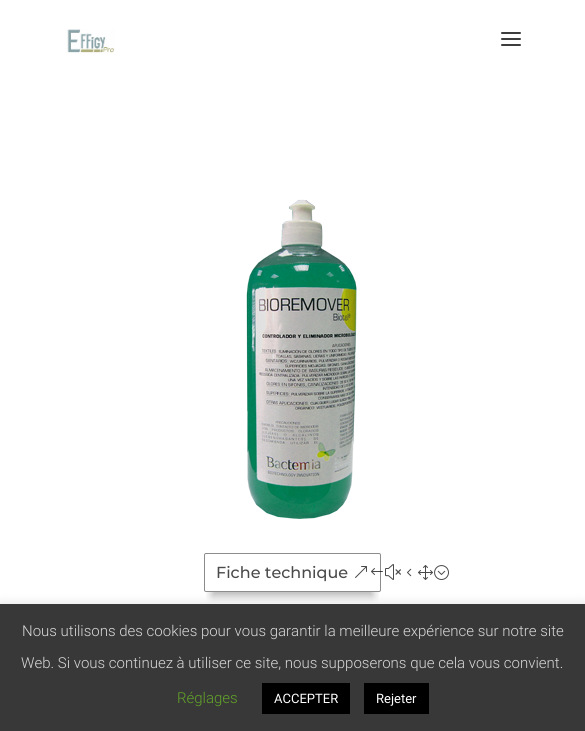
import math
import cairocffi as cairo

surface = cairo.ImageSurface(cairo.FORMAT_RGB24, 585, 731)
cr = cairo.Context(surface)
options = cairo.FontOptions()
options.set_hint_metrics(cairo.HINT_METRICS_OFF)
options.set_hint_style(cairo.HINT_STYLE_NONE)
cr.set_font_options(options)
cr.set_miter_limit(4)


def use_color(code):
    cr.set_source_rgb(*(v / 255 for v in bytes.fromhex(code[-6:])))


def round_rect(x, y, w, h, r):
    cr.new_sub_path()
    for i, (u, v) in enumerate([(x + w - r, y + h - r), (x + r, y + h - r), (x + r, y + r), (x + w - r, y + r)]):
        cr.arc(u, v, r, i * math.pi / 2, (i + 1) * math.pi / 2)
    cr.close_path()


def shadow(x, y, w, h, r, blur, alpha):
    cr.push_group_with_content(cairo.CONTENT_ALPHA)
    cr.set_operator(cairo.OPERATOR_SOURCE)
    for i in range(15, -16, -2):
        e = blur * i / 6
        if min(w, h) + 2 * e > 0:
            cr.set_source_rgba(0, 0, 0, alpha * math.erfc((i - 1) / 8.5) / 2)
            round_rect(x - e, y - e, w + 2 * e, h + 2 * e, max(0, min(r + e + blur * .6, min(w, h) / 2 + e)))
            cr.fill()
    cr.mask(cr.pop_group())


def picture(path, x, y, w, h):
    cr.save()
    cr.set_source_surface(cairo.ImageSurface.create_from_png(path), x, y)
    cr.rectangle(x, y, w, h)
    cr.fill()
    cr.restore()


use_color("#ffffff")
cr.paint()
picture("img1.png", 67, 29, 48, 24)
picture("img2.png", 501, 32, 20, 14)
picture("img3.png", 246, 199, 111, 320)
cr.save()
cr.rectangle(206, 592, 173, 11)
cr.clip()
use_color("#000000")
shadow(212, 573, 161, 23, 0, 4.5, 0.3)
cr.restore()
round_rect(204.5, 553.5, 176, 38, 1.5)
use_color("#8c8c8c")
cr.set_line_width(1)
cr.stroke()
cr.select_font_face("Montserrat Medium")
cr.set_font_size(16)
use_color("#4a4a4a")
cr.move_to(216, 578)
cr.show_text("Fiche technique")
picture("img4.png", 355, 564, 94, 16)
use_color("#acabab")
shadow(0, 603, 585, 127, 0, 5, 0.3)
use_color("#383838")
cr.rectangle(0, 604, 585, 127)
cr.fill()
cr.select_font_face("Roboto Light")
cr.set_font_size(15)
use_color("#d8d8d8")
cr.move_to(22, 636)
cr.show_text("Nous utilisons des cookies pour vous garantir la meilleure expérience sur notre site")
cr.move_to(21, 668)
cr.show_text("Web. Si vous continuez à utiliser ce site, nous supposerons que cela vous convient.")
use_color("#62a329")
cr.move_to(177, 703)
cr.show_text("Réglages")
use_color("#000000")
cr.rectangle(262, 683, 88, 31)
cr.fill()
cr.select_font_face("Roboto")
cr.set_font_size(13)
use_color("#ffffff")
cr.move_to(274, 703)
cr.show_text("ACCEPTER")
use_color("#000000")
cr.rectangle(364, 683, 65, 31)
cr.fill()
use_color("#ffffff")
cr.move_to(376, 703)
cr.show_text("Rejeter")
surface.write_to_png("result.png")
